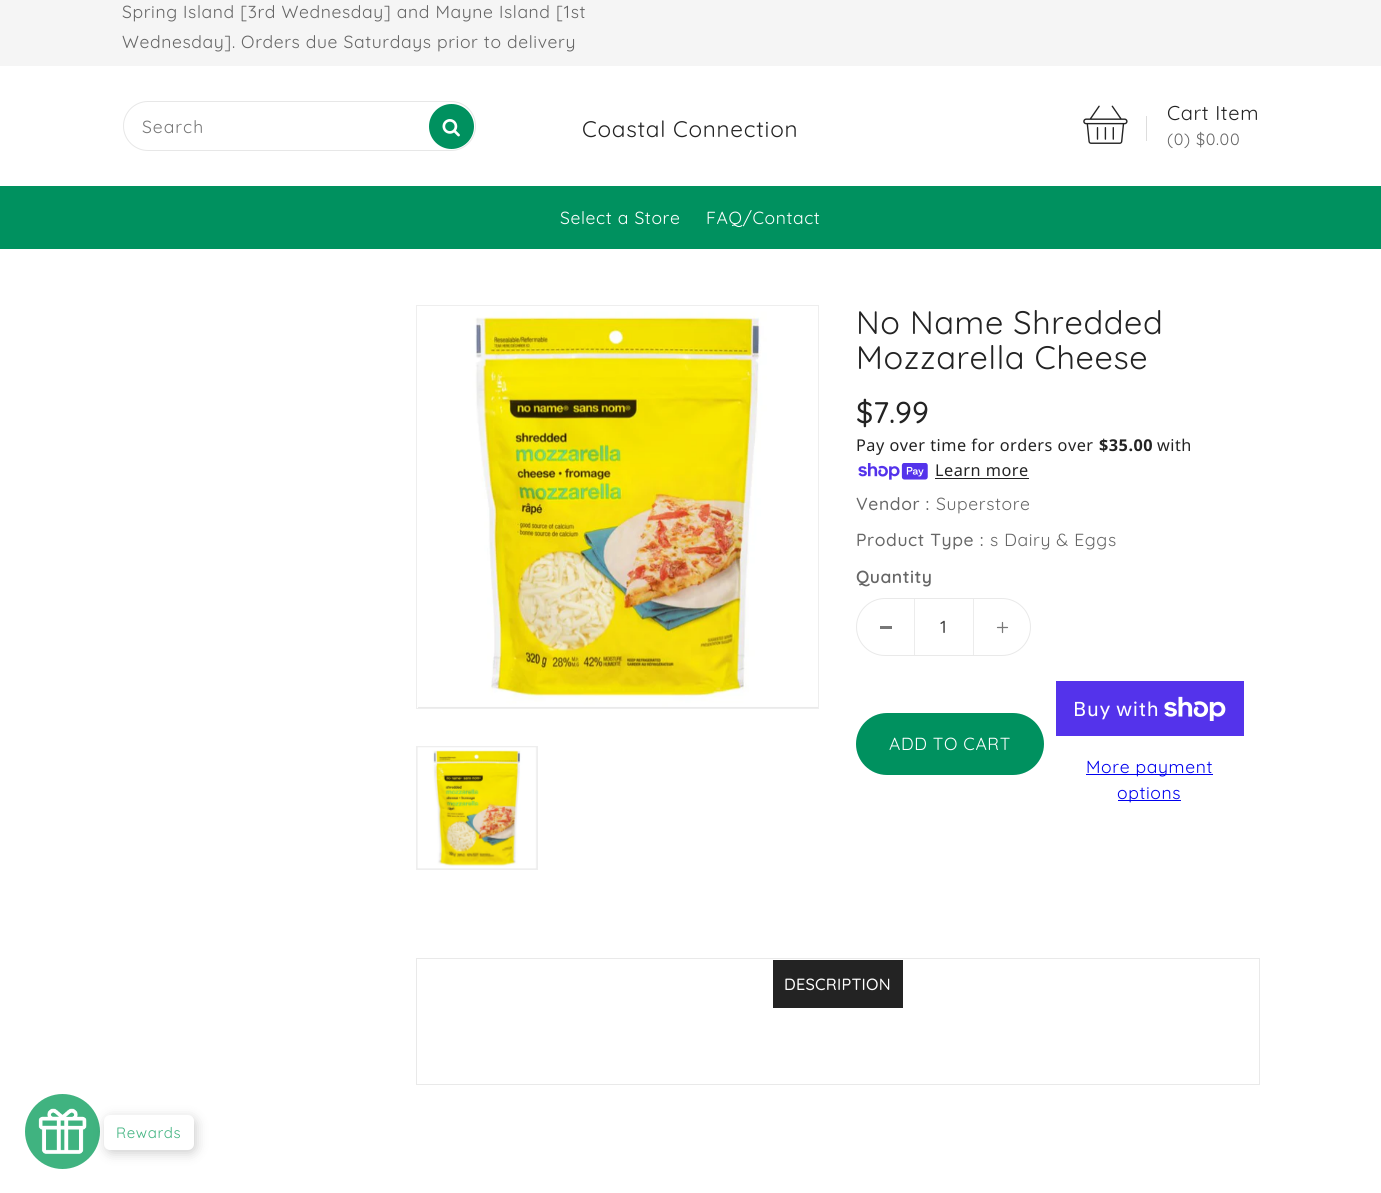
import math
import cairocffi as cairo

surface = cairo.ImageSurface(cairo.FORMAT_RGB24, 1381, 1193)
cr = cairo.Context(surface)
options = cairo.FontOptions()
options.set_hint_metrics(cairo.HINT_METRICS_OFF)
options.set_hint_style(cairo.HINT_STYLE_NONE)
cr.set_font_options(options)
cr.set_miter_limit(4)


def use_color(code):
    cr.set_source_rgb(*(v / 255 for v in bytes.fromhex(code[-6:])))


def spaced_text(x, y, s, letter, word):
    cr.move_to(x, y)
    for ch in s:
        cr.show_text(ch)
        cr.rel_move_to(letter + word * (ch == ' '), 0)


def round_rect(x, y, w, h, r):
    cr.new_sub_path()
    for i, (u, v) in enumerate([(x + w - r, y + h - r), (x + r, y + h - r), (x + r, y + r), (x + w - r, y + r)]):
        cr.arc(u, v, r, i * math.pi / 2, (i + 1) * math.pi / 2)
    cr.close_path()


def shadow(x, y, w, h, r, blur, alpha):
    cr.push_group_with_content(cairo.CONTENT_ALPHA)
    cr.set_operator(cairo.OPERATOR_SOURCE)
    for i in range(15, -16, -2):
        e = blur * i / 6
        if min(w, h) + 2 * e > 0:
            cr.set_source_rgba(0, 0, 0, alpha * math.erfc((i - 1) / 8.5) / 2)
            round_rect(x - e, y - e, w + 2 * e, h + 2 * e, max(0, min(r + e + blur * .6, min(w, h) / 2 + e)))
            cr.fill()
    cr.mask(cr.pop_group())


def picture(path, x, y, w, h):
    cr.save()
    cr.set_source_surface(cairo.ImageSurface.create_from_png(path), x, y)
    cr.rectangle(x, y, w, h)
    cr.fill()
    cr.restore()


use_color("#ffffff")
cr.paint()
use_color("#f5f5f5")
cr.rectangle(0, 0, 1381, 66)
cr.fill()
cr.select_font_face("Quicksand")
cr.set_font_size(17.5)
use_color("#666666")
spaced_text(122, 18, "Spring Island [3rd Wednesday] and Mayne Island [1st", 0.62, 0)
spaced_text(122, 48, "Wednesday]. Orders due Saturdays prior to delivery", 0.62, 0)
round_rect(123.5, 101.5, 352, 49, 24.5)
use_color("#e7e7e7")
cr.set_line_width(1)
cr.stroke()
use_color("#777777")
spaced_text(142, 133, "Search", 1, 0)
use_color("#00915f")
cr.new_path()
cr.arc(451.5, 126.5, 22.5, 0, 2 * math.pi)
cr.fill()
picture("img1.png", 442, 119, 18, 18)
cr.set_font_size(22.5)
use_color("#232323")
spaced_text(582, 137, "Coastal Connection", 0.75, 0)
picture("img2.png", 1083, 105, 45, 39)
cr.set_font_size(20)
spaced_text(1167, 120, "Cart Item", 0.62, 0)
use_color("#dddddd")
cr.rectangle(1146, 116, 1, 25)
cr.fill()
cr.set_font_size(16.25)
use_color("#666666")
spaced_text(1167, 145, "(0)", 0.62, 0)
spaced_text(1196, 145, "$0.00", 0.62, 0)
use_color("#00915f")
cr.rectangle(0, 186, 1381, 63)
cr.fill()
cr.set_font_size(17.5)
use_color("#ffffff")
spaced_text(560, 224, "Select a Store", 0.62, 0)
spaced_text(706, 224, "FAQ/Contact", 0.62, 0)
cr.rectangle(416.5, 305.5, 402, 403)
use_color("#eeeeee")
cr.stroke()
use_color("#eaeaea")
cr.rectangle(418, 706, 400, 2)
cr.fill()
picture("img3.png", 418, 306, 400, 401)
use_color("#e9e9e9")
cr.rectangle(416.5, 746.5, 121, 123)
cr.fill_preserve()
use_color("#eeeeee")
cr.stroke()
picture("img4.png", 417, 747, 120, 122)
cr.set_font_size(32.5)
use_color("#232323")
spaced_text(856, 334, "No Name Shredded", 0.62, 0)
spaced_text(856, 369, "Mozzarella Cheese", 0.62, 0)
cr.select_font_face("Quicksand Medium")
cr.set_font_size(30)
cr.move_to(856, 423)
cr.show_text("$7.99")
cr.select_font_face("Noto Sans")
cr.set_font_size(16.25)
spaced_text(856, 451, "Pay over time for orders over", 0.5, 0)
cr.select_font_face("Noto Sans", cairo.FONT_SLANT_NORMAL, cairo.FONT_WEIGHT_BOLD)
spaced_text(1099, 451, "$35.00", 0.5, 0)
cr.select_font_face("Noto Sans")
spaced_text(1157, 451, "with", 0.5, 0)
picture("img5.png", 858, 463, 70, 17)
spaced_text(935, 476, "Learn more", 0.5, 0)
cr.rectangle(935, 478, 94, 1)
cr.fill()
cr.select_font_face("Quicksand Medium")
cr.set_font_size(17.5)
use_color("#666666")
spaced_text(856, 510, "Vendor :", 0.62, 0)
cr.select_font_face("Quicksand")
spaced_text(936, 510, "Superstore", 0.62, 0)
cr.select_font_face("Quicksand Medium")
spaced_text(856, 546, "Product Type :", 0.62, 0)
cr.select_font_face("Quicksand")
spaced_text(990, 546, "s Dairy & Eggs", 0.62, 0)
cr.select_font_face("Quicksand SemiBold")
spaced_text(856, 583, "Quantity", 0.5, 0)
round_rect(856.5, 598.5, 174, 57, 28.5)
use_color("#e9e9e9")
cr.stroke()
use_color("#787878")
cr.rectangle(880, 626, 12, 3)
cr.fill()
use_color("#ececec")
cr.rectangle(973, 599, 1, 56)
cr.fill()
cr.rectangle(914, 599, 1, 56)
cr.fill()
cr.select_font_face("Quicksand Medium")
use_color("#444444")
cr.move_to(940, 633)
cr.show_text("1")
picture("img6.png", 996, 621, 13, 13)
use_color("#00915f")
round_rect(856, 713, 188, 62, 31)
cr.fill()
cr.select_font_face("Quicksand")
use_color("#ffffff")
spaced_text(889, 750, "ADD TO CART", 0.62, 0)
use_color("#5433eb")
cr.rectangle(1056, 681, 188, 55)
cr.fill()
cr.select_font_face("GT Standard")
cr.set_font_size(20)
use_color("#ffffff")
spaced_text(1073, 716, "Buy with", 0.62, 0)
picture("img7.png", 1164, 696, 62, 25)
use_color("#0000ee")
cr.rectangle(1086, 774, 127, 1)
cr.fill()
cr.select_font_face("Quicksand")
cr.set_font_size(17.5)
spaced_text(1086, 773, "More payment", 0.62, 0)
cr.rectangle(1118, 800, 63, 1)
cr.fill()
spaced_text(1117, 799, "options", 0.62, 0)
cr.rectangle(416.5, 958.5, 843, 126)
use_color("#e9e9e9")
cr.stroke()
use_color("#232323")
cr.rectangle(773, 960, 130, 48)
cr.fill()
cr.select_font_face("Quicksand Medium")
cr.set_font_size(16.25)
use_color("#ffffff")
spaced_text(784, 990, "DESCRIPTION", 0.25, 0)
use_color("#40b380")
cr.new_path()
cr.arc(62.5, 1131.5, 37.5, 0, 2 * math.pi)
cr.fill()
picture("img8.png", 38, 1108, 49, 46)
use_color("#000000")
shadow(106, 1118, 90, 35, 6, 6, 0.2)
use_color("#ffffff")
round_rect(104, 1115, 90, 35, 6)
cr.fill()
cr.select_font_face("Quicksand")
cr.set_font_size(15)
use_color("#40b380")
spaced_text(116, 1138, "Rewards", 0.62, 0)
surface.write_to_png("result.png")
